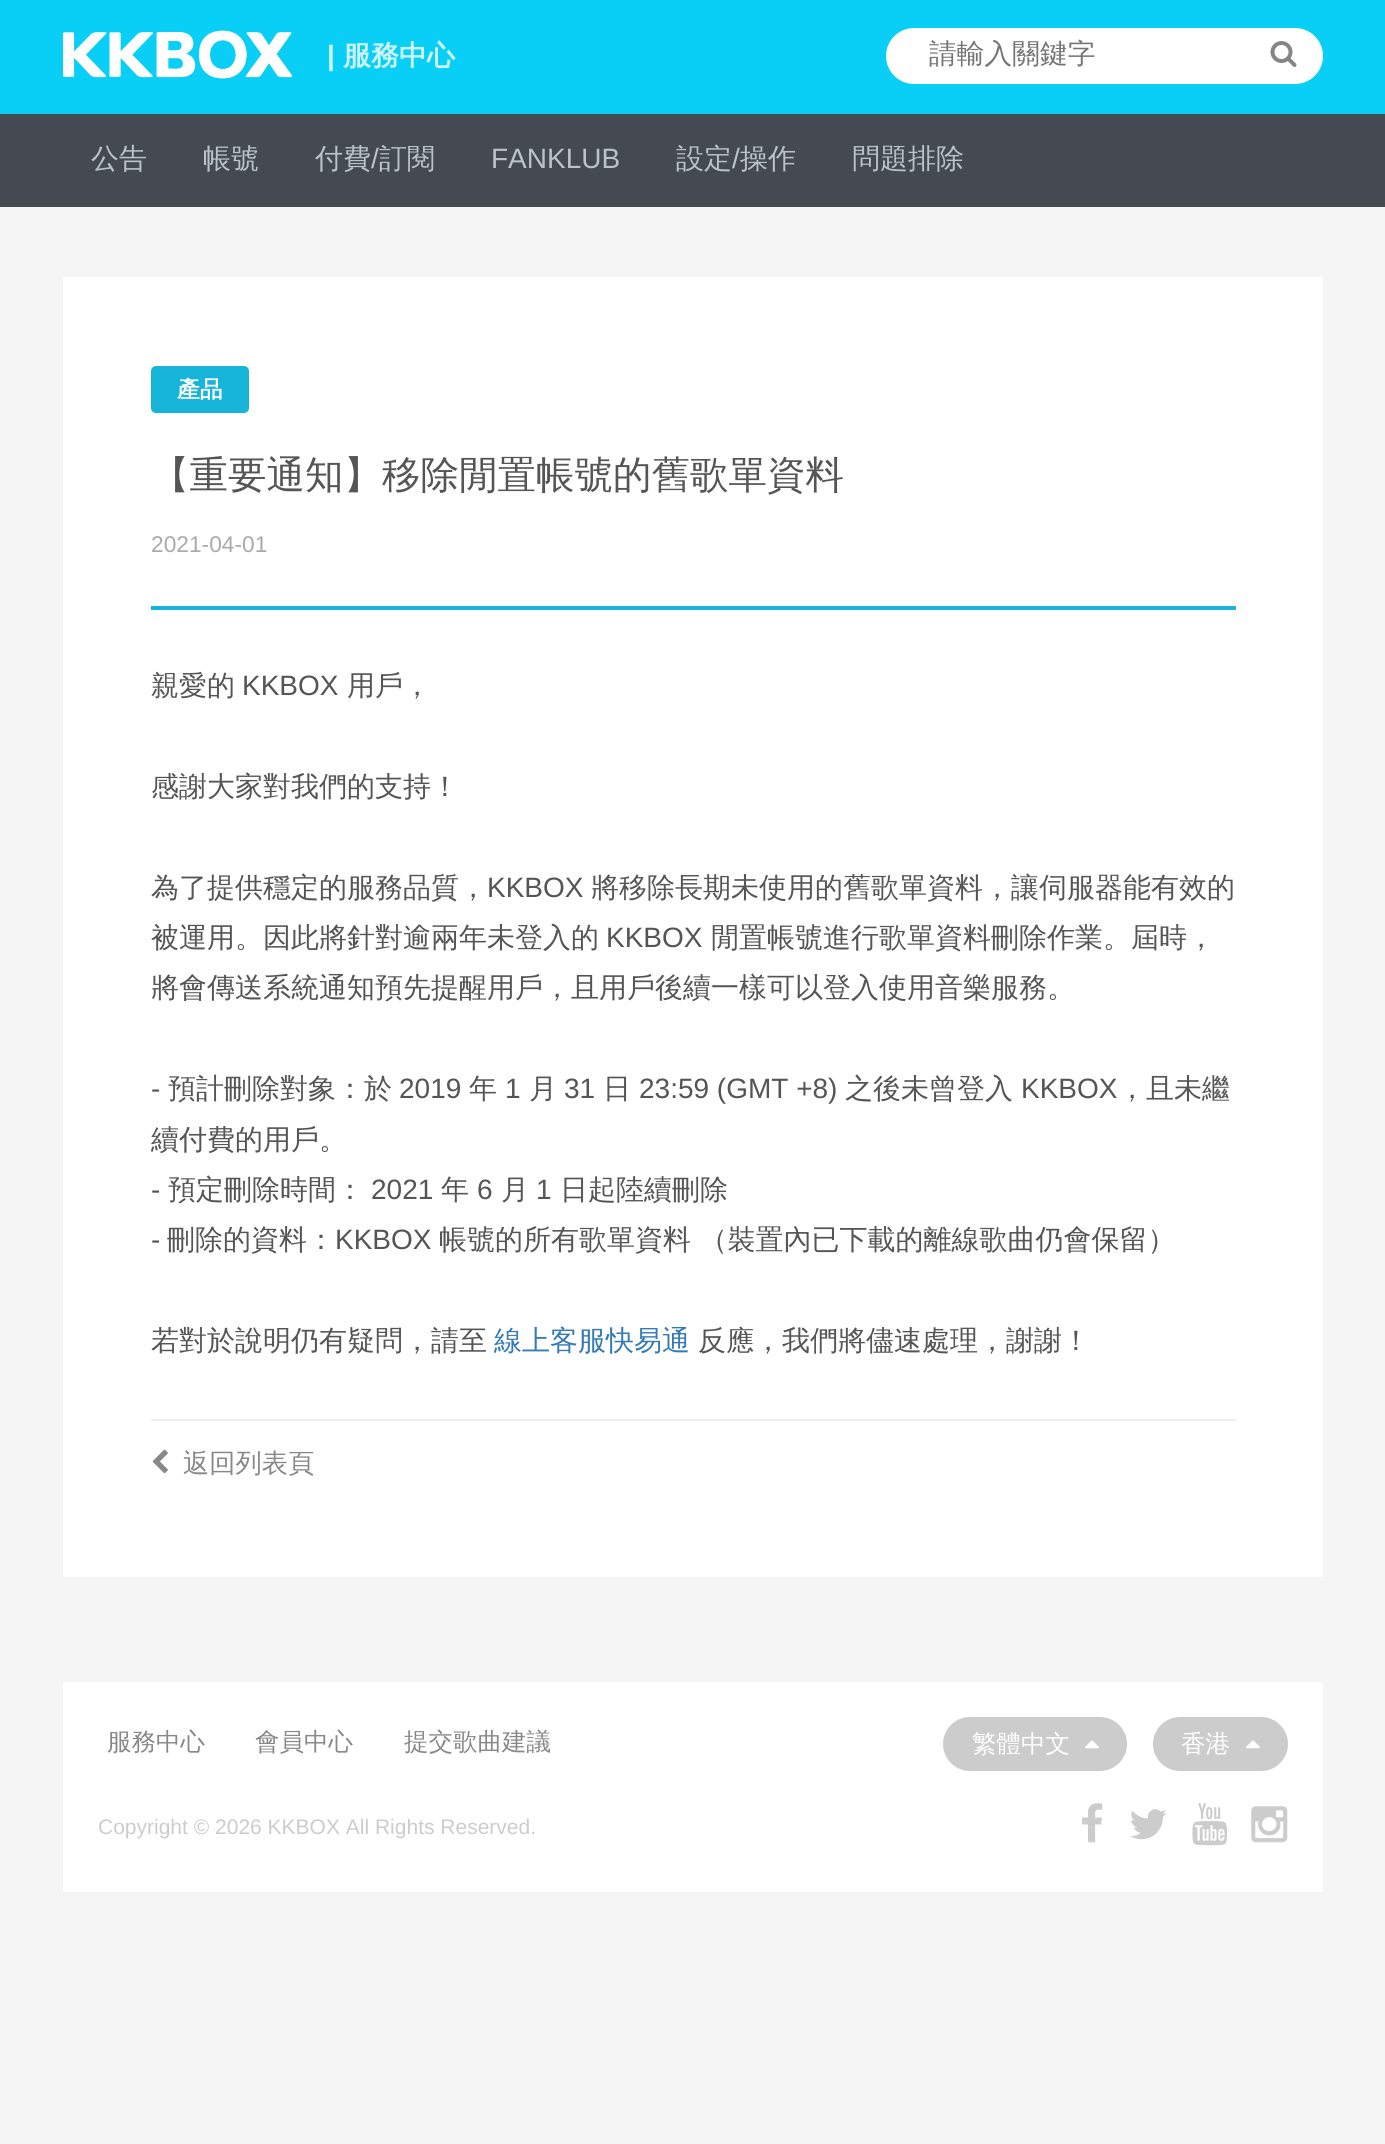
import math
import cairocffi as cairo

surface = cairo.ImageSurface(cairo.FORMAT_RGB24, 1385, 2144)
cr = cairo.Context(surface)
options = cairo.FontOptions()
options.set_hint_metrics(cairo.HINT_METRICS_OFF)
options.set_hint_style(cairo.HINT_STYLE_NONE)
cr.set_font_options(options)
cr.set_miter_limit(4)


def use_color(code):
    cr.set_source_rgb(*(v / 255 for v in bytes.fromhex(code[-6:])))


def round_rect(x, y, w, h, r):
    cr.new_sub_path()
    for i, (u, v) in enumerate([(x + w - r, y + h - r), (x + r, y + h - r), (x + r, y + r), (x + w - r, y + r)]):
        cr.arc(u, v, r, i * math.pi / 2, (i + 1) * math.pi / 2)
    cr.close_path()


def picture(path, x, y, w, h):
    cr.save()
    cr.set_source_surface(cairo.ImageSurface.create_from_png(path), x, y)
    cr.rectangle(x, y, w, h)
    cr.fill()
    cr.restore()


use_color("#f5f5f5")
cr.paint()
use_color("#09cef6")
cr.rectangle(0, 0, 1385, 114)
cr.fill()
picture("img1.png", 63, 30, 229, 49)
cr.select_font_face("Liberation Sans", cairo.FONT_SLANT_NORMAL, cairo.FONT_WEIGHT_BOLD)
cr.set_font_size(28)
use_color("#cef5fd")
cr.move_to(327, 65)
cr.show_text("|")
cr.select_font_face("WenQuanYi Zen Hei", cairo.FONT_SLANT_NORMAL, cairo.FONT_WEIGHT_BOLD)
cr.move_to(343, 65)
cr.show_text("服務中心")
use_color("#ffffff")
round_rect(886, 28, 437, 56, 28)
cr.fill()
cr.select_font_face("WenQuanYi Zen Hei Medium")
cr.set_font_size(27.75)
use_color("#757575")
cr.move_to(929, 63)
cr.show_text("請輸入關鍵字")
picture("img2.png", 1270, 41, 27, 26)
use_color("#454a52")
cr.rectangle(0, 114, 1385, 93)
cr.fill()
cr.set_font_size(28)
use_color("#bbc3ca")
cr.move_to(91, 168)
cr.show_text("公告")
cr.move_to(203, 168)
cr.show_text("帳號")
cr.move_to(315, 168)
cr.show_text("付費")
cr.select_font_face("Liberation Sans")
cr.move_to(371, 168)
cr.show_text("/")
cr.select_font_face("WenQuanYi Zen Hei Medium")
cr.move_to(379, 168)
cr.show_text("訂閱")
cr.select_font_face("Liberation Sans")
cr.move_to(491, 168)
cr.show_text("FANKLUB")
cr.select_font_face("WenQuanYi Zen Hei Medium")
cr.move_to(676, 168)
cr.show_text("設定")
cr.select_font_face("Liberation Sans")
cr.move_to(732, 168)
cr.show_text("/")
cr.select_font_face("WenQuanYi Zen Hei Medium")
cr.move_to(740, 168)
cr.show_text("操作")
cr.move_to(852, 168)
cr.show_text("問題排除")
use_color("#ffffff")
cr.rectangle(63, 277, 1260, 1300)
cr.fill()
use_color("#17b5da")
cr.rectangle(151, 606, 1085, 4)
cr.fill()
round_rect(151, 366, 98, 47, 5)
cr.fill()
cr.select_font_face("WenQuanYi Zen Hei", cairo.FONT_SLANT_NORMAL, cairo.FONT_WEIGHT_BOLD)
cr.set_font_size(22.75)
use_color("#ffffff")
cr.move_to(177, 397)
cr.show_text("產品")
cr.select_font_face("WenQuanYi Zen Hei Medium")
cr.set_font_size(38.5)
use_color("#555555")
cr.move_to(151, 488)
cr.show_text("【重要通知】移除閒置帳號的舊歌單資料")
cr.select_font_face("Liberation Sans")
cr.set_font_size(22.75)
use_color("#aaaaaa")
cr.move_to(151, 552)
cr.show_text("2021-04-01")
use_color("#eeeeee")
cr.rectangle(151, 1419, 1085, 2)
cr.fill()
cr.select_font_face("WenQuanYi Zen Hei Medium")
cr.set_font_size(28)
use_color("#555555")
cr.move_to(151, 695)
cr.show_text("親愛的")
cr.select_font_face("Liberation Sans")
cr.move_to(242, 695)
cr.show_text("KKBOX")
cr.select_font_face("WenQuanYi Zen Hei Medium")
cr.move_to(347, 695)
cr.show_text("用戶，")
cr.move_to(151, 796)
cr.show_text("感謝大家對我們的支持！")
cr.move_to(151, 897)
cr.show_text("為了提供穩定的服務品質，")
cr.select_font_face("Liberation Sans")
cr.move_to(487, 897)
cr.show_text("KKBOX")
cr.select_font_face("WenQuanYi Zen Hei Medium")
cr.move_to(591, 897)
cr.show_text("將移除長期未使用的舊歌單資料，讓伺服器能有效的")
cr.move_to(151, 947)
cr.show_text("被運用。因此將針對逾兩年未登入的")
cr.select_font_face("Liberation Sans")
cr.move_to(606, 947)
cr.show_text("KKBOX")
cr.select_font_face("WenQuanYi Zen Hei Medium")
cr.move_to(711, 947)
cr.show_text("閒置帳號進行歌單資料刪除作業。屆時，")
cr.move_to(151, 997)
cr.show_text("將會傳送系統通知預先提醒用戶，且用戶後續一樣可以登入使用音樂服務。")
cr.select_font_face("Liberation Sans")
cr.move_to(151, 1098)
cr.show_text("-")
cr.select_font_face("WenQuanYi Zen Hei Medium")
cr.move_to(168, 1098)
cr.show_text("預計刪除對象：於")
cr.select_font_face("Liberation Sans")
cr.move_to(399, 1098)
cr.show_text("2019")
cr.select_font_face("WenQuanYi Zen Hei Medium")
cr.move_to(469, 1098)
cr.show_text("年")
cr.select_font_face("Liberation Sans")
cr.move_to(505, 1098)
cr.show_text("1")
cr.select_font_face("WenQuanYi Zen Hei Medium")
cr.move_to(529, 1098)
cr.show_text("月")
cr.select_font_face("Liberation Sans")
cr.move_to(564, 1098)
cr.show_text("31")
cr.select_font_face("WenQuanYi Zen Hei Medium")
cr.move_to(603, 1098)
cr.show_text("日")
cr.select_font_face("Liberation Sans")
cr.move_to(639, 1098)
cr.show_text("23:59 (GMT +8)")
cr.select_font_face("WenQuanYi Zen Hei Medium")
cr.move_to(845, 1098)
cr.show_text("之後未曾登入")
cr.select_font_face("Liberation Sans")
cr.move_to(1021, 1098)
cr.show_text("KKBOX")
cr.select_font_face("WenQuanYi Zen Hei Medium")
cr.move_to(1118, 1098)
cr.show_text("，且未繼")
cr.move_to(151, 1149)
cr.show_text("續付費的用戶。")
cr.select_font_face("Liberation Sans")
cr.move_to(151, 1199)
cr.show_text("-")
cr.select_font_face("WenQuanYi Zen Hei Medium")
cr.move_to(168, 1199)
cr.show_text("預定刪除時間：")
cr.select_font_face("Liberation Sans")
cr.move_to(371, 1199)
cr.show_text("2021")
cr.select_font_face("WenQuanYi Zen Hei Medium")
cr.move_to(441, 1199)
cr.show_text("年")
cr.select_font_face("Liberation Sans")
cr.move_to(477, 1199)
cr.show_text("6")
cr.select_font_face("WenQuanYi Zen Hei Medium")
cr.move_to(501, 1199)
cr.show_text("月")
cr.select_font_face("Liberation Sans")
cr.move_to(536, 1199)
cr.show_text("1")
cr.select_font_face("WenQuanYi Zen Hei Medium")
cr.move_to(560, 1199)
cr.show_text("日起陸續刪除")
cr.select_font_face("Liberation Sans")
cr.move_to(151, 1249)
cr.show_text("-")
cr.select_font_face("WenQuanYi Zen Hei Medium")
cr.move_to(167, 1249)
cr.show_text("刪除的資料：")
cr.select_font_face("Liberation Sans")
cr.move_to(335, 1249)
cr.show_text("KKBOX")
cr.select_font_face("WenQuanYi Zen Hei Medium")
cr.move_to(439, 1249)
cr.show_text("帳號的所有歌單資料 （裝置內已下載的離線歌曲仍會保留）")
cr.move_to(151, 1350)
cr.show_text("若對於說明仍有疑問，請至")
use_color("#337ab7")
cr.move_to(494, 1350)
cr.show_text("線上客服快易通")
use_color("#555555")
cr.move_to(698, 1350)
cr.show_text("反應，我們將儘速處理，謝謝！")
picture("img3.png", 152, 1449, 16, 25)
cr.set_font_size(26.25)
use_color("#888888")
cr.move_to(183, 1472)
cr.show_text("返回列表頁")
use_color("#ffffff")
cr.rectangle(63, 1682, 1260, 210)
cr.fill()
cr.set_font_size(24.5)
use_color("#888888")
cr.move_to(107, 1750)
cr.show_text("服務中心")
cr.move_to(255, 1750)
cr.show_text("會員中心")
cr.move_to(404, 1750)
cr.show_text("提交歌曲建議")
use_color("#cccccc")
round_rect(943, 1717, 184, 54, 27)
cr.fill()
use_color("#ffffff")
cr.move_to(972, 1752)
cr.show_text("繁體中文")
picture("img4.png", 1085, 1740, 14, 9)
use_color("#cccccc")
round_rect(1153, 1717, 135, 54, 27)
cr.fill()
use_color("#ffffff")
cr.move_to(1181, 1752)
cr.show_text("香港")
picture("img4.png", 1246, 1740, 14, 9)
cr.select_font_face("Liberation Sans")
cr.set_font_size(21)
use_color("#cccccc")
cr.move_to(98, 1834)
cr.show_text("Copyright © 2026 KKBOX All Rights Reserved.")
picture("img5.png", 1082, 1803, 21, 40)
picture("img6.png", 1130, 1809, 37, 31)
picture("img7.png", 1192, 1803, 36, 43)
picture("img8.png", 1251, 1806, 37, 37)
surface.write_to_png("result.png")
